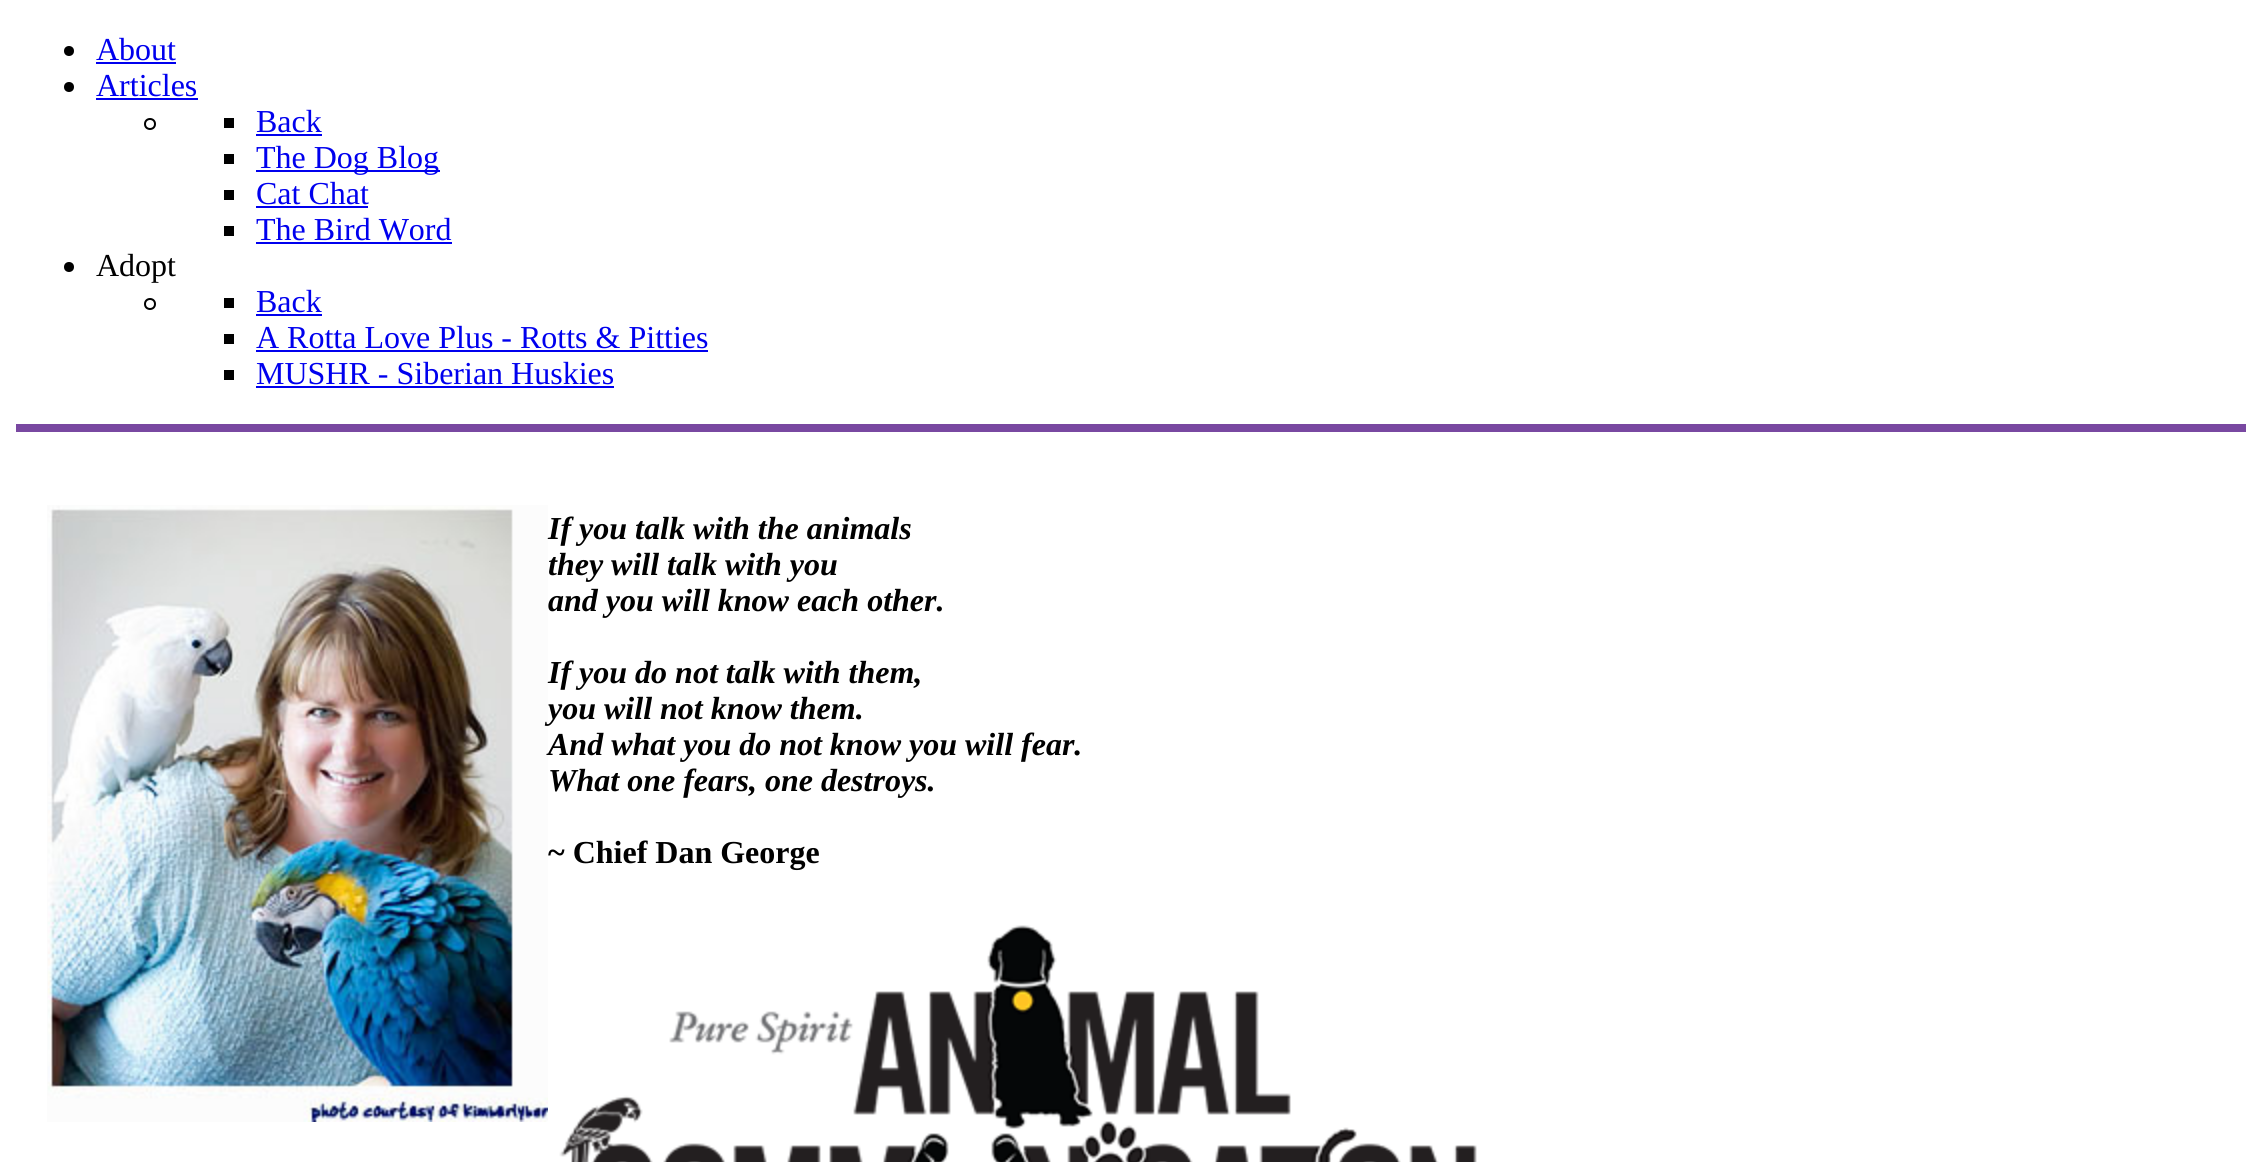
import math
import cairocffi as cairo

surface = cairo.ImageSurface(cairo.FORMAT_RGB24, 2262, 1162)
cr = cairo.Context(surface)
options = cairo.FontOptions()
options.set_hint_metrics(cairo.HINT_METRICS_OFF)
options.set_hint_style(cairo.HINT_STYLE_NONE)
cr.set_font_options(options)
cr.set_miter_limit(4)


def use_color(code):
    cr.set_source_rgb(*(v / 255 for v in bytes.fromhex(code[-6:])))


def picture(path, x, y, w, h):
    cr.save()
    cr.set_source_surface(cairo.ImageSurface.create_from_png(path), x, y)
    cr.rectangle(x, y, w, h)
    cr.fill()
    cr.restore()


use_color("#ffffff")
cr.paint()
use_color("#7948a1")
cr.rectangle(16, 424, 2230, 8)
cr.fill()
use_color("#000000")
cr.arc(69, 51, 5, 0, 2 * math.pi)
cr.fill()
cr.select_font_face("Liberation Serif")
cr.set_font_size(32)
use_color("#0000ee")
cr.move_to(96, 60)
cr.show_text("About")
cr.rectangle(96, 62, 80, 2)
cr.fill()
use_color("#000000")
cr.arc(69, 87, 5, 0, 2 * math.pi)
cr.fill()
use_color("#0000ee")
cr.move_to(96, 96)
cr.show_text("Articles")
cr.rectangle(96, 98, 102, 2)
cr.fill()
cr.arc(150, 124, 5, 0, 2 * math.pi)
use_color("#000000")
cr.stroke()
cr.rectangle(224, 118, 10, 10)
cr.fill()
use_color("#0000ee")
cr.move_to(256, 132)
cr.show_text("Back")
cr.rectangle(256, 134, 66, 2)
cr.fill()
use_color("#000000")
cr.rectangle(224, 154, 10, 10)
cr.fill()
use_color("#0000ee")
cr.rectangle(256, 170, 184, 2)
cr.fill()
cr.move_to(256, 168)
cr.show_text("The Dog Blog")
use_color("#000000")
cr.rectangle(224, 190, 10, 10)
cr.fill()
use_color("#0000ee")
cr.move_to(256, 204)
cr.show_text("Cat Chat")
cr.rectangle(256, 206, 112, 2)
cr.fill()
use_color("#000000")
cr.rectangle(224, 226, 10, 10)
cr.fill()
use_color("#0000ee")
cr.move_to(256, 240)
cr.show_text("The Bird Word")
cr.rectangle(256, 242, 196, 2)
cr.fill()
use_color("#000000")
cr.arc(69, 267, 5, 0, 2 * math.pi)
cr.fill()
cr.move_to(96, 276)
cr.show_text("Adopt")
cr.new_path()
cr.arc(150, 304, 5, 0, 2 * math.pi)
cr.stroke()
cr.rectangle(224, 298, 10, 10)
cr.fill()
use_color("#0000ee")
cr.move_to(256, 312)
cr.show_text("Back")
cr.rectangle(256, 314, 66, 2)
cr.fill()
use_color("#000000")
cr.rectangle(224, 334, 10, 10)
cr.fill()
use_color("#0000ee")
cr.move_to(256, 348)
cr.show_text("A Rotta Love Plus - Rotts & Pitties")
cr.rectangle(256, 350, 452, 2)
cr.fill()
use_color("#000000")
cr.rectangle(224, 370, 10, 10)
cr.fill()
use_color("#0000ee")
cr.move_to(256, 384)
cr.show_text("MUSHR - Siberian Huskies")
cr.rectangle(256, 386, 358, 2)
cr.fill()
picture("img1.png", 47, 505, 501, 617)
cr.select_font_face("Liberation Serif", cairo.FONT_SLANT_ITALIC, cairo.FONT_WEIGHT_BOLD)
use_color("#000000")
cr.move_to(548, 539)
cr.show_text("If you talk with the animals")
cr.move_to(548, 575)
cr.show_text("they will talk with you")
cr.move_to(548, 611)
cr.show_text("and you will know each other.")
cr.move_to(548, 683)
cr.show_text("If you do not talk with them,")
cr.move_to(548, 719)
cr.show_text("you will not know them.")
cr.move_to(548, 755)
cr.show_text("And what you do not know you will fear.")
cr.move_to(548, 791)
cr.show_text("What one fears, one destroys.")
cr.select_font_face("Liberation Serif", cairo.FONT_SLANT_NORMAL, cairo.FONT_WEIGHT_BOLD)
cr.move_to(548, 863)
cr.show_text("~ Chief Dan George")
picture("img2.png", 559, 925, 918, 237)
surface.write_to_png("result.png")
